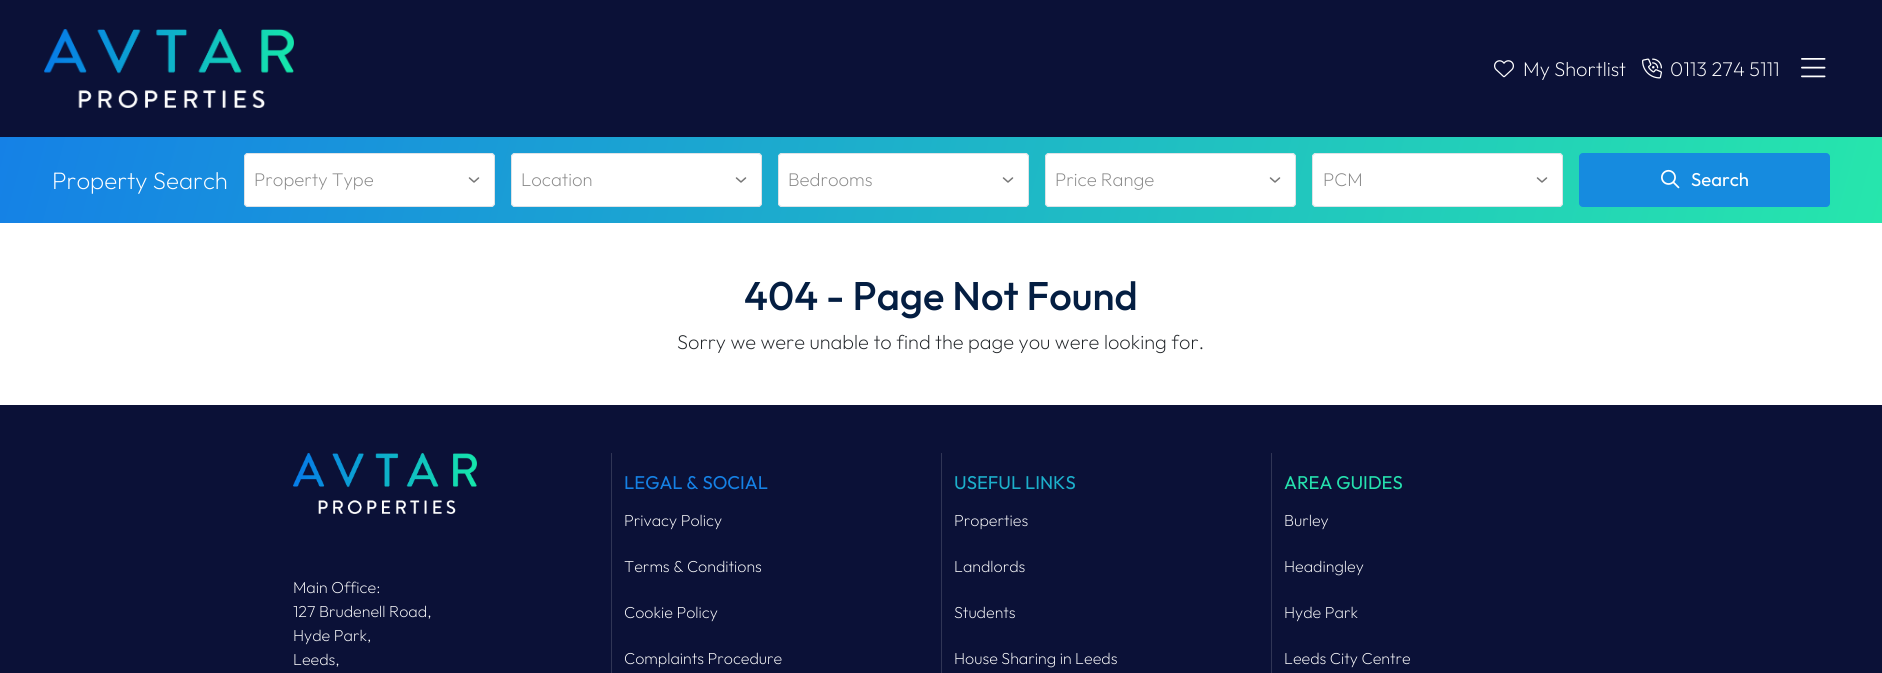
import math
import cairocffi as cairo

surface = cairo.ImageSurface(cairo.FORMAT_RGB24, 1882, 673)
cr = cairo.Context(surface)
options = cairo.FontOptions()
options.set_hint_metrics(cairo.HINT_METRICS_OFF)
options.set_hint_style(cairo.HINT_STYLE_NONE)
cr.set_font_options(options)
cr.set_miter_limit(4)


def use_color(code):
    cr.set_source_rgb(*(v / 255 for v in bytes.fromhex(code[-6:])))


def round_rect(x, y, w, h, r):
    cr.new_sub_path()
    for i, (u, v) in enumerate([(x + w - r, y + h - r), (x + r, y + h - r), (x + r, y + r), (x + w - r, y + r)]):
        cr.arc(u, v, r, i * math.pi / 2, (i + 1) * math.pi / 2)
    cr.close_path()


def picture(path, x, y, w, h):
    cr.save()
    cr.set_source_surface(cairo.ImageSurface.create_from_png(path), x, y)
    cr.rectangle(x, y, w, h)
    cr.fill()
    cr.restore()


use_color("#ffffff")
cr.paint()
use_color("#0b1137")
cr.rectangle(0, 0, 1882, 137)
cr.fill()
picture("img1.png", 44, 29, 250, 79)
picture("img2.png", 1494, 60, 20, 18)
cr.select_font_face("Outfit ExtraLight")
cr.set_font_size(20)
use_color("#ffffff")
cr.move_to(1523, 76)
cr.show_text("My Shortlist")
picture("img3.png", 1642, 58, 20, 21)
cr.move_to(1670, 76)
cr.show_text("0113 274 5111")
picture("img4.png", 1801, 58, 25, 20)
gradient = cairo.LinearGradient(52, -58, 1830, 418)
gradient.add_color_stop_rgba(0, 0.082, 0.506, 0.902, 1)
gradient.add_color_stop_rgba(1, 0.149, 0.902, 0.675, 1)
cr.set_source(gradient)
cr.rectangle(0, 137, 1882, 86)
cr.fill()
cr.set_font_size(24)
use_color("#ffffff")
cr.move_to(52, 189)
cr.show_text("Property Search")
round_rect(244, 153, 251, 54, 4)
cr.fill()
cr.new_path()
cr.move_to(469.5, 178)
cr.line_to(474, 182)
cr.line_to(478.5, 178)
use_color("#777777")
cr.set_line_width(1.5)
cr.set_line_cap(cairo.LINE_CAP_ROUND)
cr.set_line_join(cairo.LINE_JOIN_ROUND)
cr.stroke()
round_rect(244.5, 153.5, 250, 53, 3.5)
use_color("#dee2e6")
cr.set_line_width(1)
cr.set_line_cap(cairo.LINE_CAP_BUTT)
cr.set_line_join(cairo.LINE_JOIN_MITER)
cr.stroke()
cr.set_font_size(18.5)
use_color("#888888")
cr.move_to(254, 186)
cr.show_text("Property Type")
use_color("#ffffff")
round_rect(511, 153, 251, 54, 4)
cr.fill()
cr.new_path()
cr.move_to(736.5, 178)
cr.line_to(741, 182)
cr.line_to(745.5, 178)
use_color("#777777")
cr.set_line_width(1.5)
cr.set_line_cap(cairo.LINE_CAP_ROUND)
cr.set_line_join(cairo.LINE_JOIN_ROUND)
cr.stroke()
round_rect(511.5, 153.5, 250, 53, 3.5)
use_color("#dee2e6")
cr.set_line_width(1)
cr.set_line_cap(cairo.LINE_CAP_BUTT)
cr.set_line_join(cairo.LINE_JOIN_MITER)
cr.stroke()
use_color("#888888")
cr.move_to(521, 186)
cr.show_text("Location")
use_color("#ffffff")
round_rect(778, 153, 251, 54, 4)
cr.fill()
cr.new_path()
cr.move_to(1003.5, 178)
cr.line_to(1008, 182)
cr.line_to(1012.5, 178)
use_color("#777777")
cr.set_line_width(1.5)
cr.set_line_cap(cairo.LINE_CAP_ROUND)
cr.set_line_join(cairo.LINE_JOIN_ROUND)
cr.stroke()
round_rect(778.5, 153.5, 250, 53, 3.5)
use_color("#dee2e6")
cr.set_line_width(1)
cr.set_line_cap(cairo.LINE_CAP_BUTT)
cr.set_line_join(cairo.LINE_JOIN_MITER)
cr.stroke()
use_color("#888888")
cr.move_to(788, 186)
cr.show_text("Bedrooms")
use_color("#ffffff")
round_rect(1045, 153, 251, 54, 4)
cr.fill()
cr.new_path()
cr.move_to(1270.5, 178)
cr.line_to(1275, 182)
cr.line_to(1279.5, 178)
use_color("#777777")
cr.set_line_width(1.5)
cr.set_line_cap(cairo.LINE_CAP_ROUND)
cr.set_line_join(cairo.LINE_JOIN_ROUND)
cr.stroke()
round_rect(1045.5, 153.5, 250, 53, 3.5)
use_color("#dee2e6")
cr.set_line_width(1)
cr.set_line_cap(cairo.LINE_CAP_BUTT)
cr.set_line_join(cairo.LINE_JOIN_MITER)
cr.stroke()
use_color("#888888")
cr.move_to(1055, 186)
cr.show_text("Price Range")
use_color("#ffffff")
round_rect(1312, 153, 251, 54, 4)
cr.fill()
cr.new_path()
cr.move_to(1537.5, 178)
cr.line_to(1542, 182)
cr.line_to(1546.5, 178)
use_color("#777777")
cr.set_line_width(1.5)
cr.set_line_cap(cairo.LINE_CAP_ROUND)
cr.set_line_join(cairo.LINE_JOIN_ROUND)
cr.stroke()
round_rect(1312.5, 153.5, 250, 53, 3.5)
use_color("#dee2e6")
cr.set_line_width(1)
cr.set_line_cap(cairo.LINE_CAP_BUTT)
cr.set_line_join(cairo.LINE_JOIN_MITER)
cr.stroke()
use_color("#888888")
cr.move_to(1323, 186)
cr.show_text("PCM")
use_color("#168bdf")
round_rect(1579.5, 153.5, 250, 53, 3.5)
cr.fill_preserve()
cr.stroke()
picture("img5.png", 1661, 169, 19, 20)
cr.select_font_face("Outfit")
use_color("#ffffff")
cr.move_to(1691, 186)
cr.show_text("Search")
cr.select_font_face("Outfit Medium")
cr.set_font_size(40)
use_color("#041e42")
cr.move_to(744, 310)
cr.show_text("404 - Page Not Found")
cr.select_font_face("Outfit ExtraLight")
cr.set_font_size(20)
use_color("#212529")
cr.move_to(677, 349)
cr.show_text("Sorry we were unable to find the page you were looking for.")
use_color("#0b1137")
cr.rectangle(0, 405, 1882, 268)
cr.fill()
picture("img6.png", 293, 453, 184, 61)
cr.set_font_size(16)
use_color("#ffffff")
cr.move_to(293, 593)
cr.show_text("Main Office:")
cr.move_to(293, 617)
cr.show_text("127 Brudenell Road,")
cr.move_to(293, 641)
cr.show_text("Hyde Park,")
cr.move_to(293, 665)
cr.show_text("Leeds,")
use_color("#303555")
cr.rectangle(611, 453, 1, 220)
cr.fill()
cr.select_font_face("Outfit")
cr.set_font_size(18.5)
use_color("#1581e5")
cr.move_to(624, 489)
cr.show_text("LEGAL & SOCIAL")
cr.select_font_face("Outfit ExtraLight")
cr.set_font_size(16)
use_color("#ffffff")
cr.move_to(624, 526)
cr.show_text("Privacy Policy")
cr.move_to(624, 572)
cr.show_text("Terms & Conditions")
cr.move_to(624, 618)
cr.show_text("Cookie Policy")
cr.move_to(624, 664)
cr.show_text("Complaints Procedure")
use_color("#303555")
cr.rectangle(941, 453, 1, 220)
cr.fill()
cr.select_font_face("Outfit")
cr.set_font_size(18.5)
use_color("#1cafcb")
cr.move_to(954, 489)
cr.show_text("USEFUL LINKS")
cr.select_font_face("Outfit ExtraLight")
cr.set_font_size(16)
use_color("#ffffff")
cr.move_to(954, 526)
cr.show_text("Properties")
cr.move_to(954, 572)
cr.show_text("Landlords")
cr.move_to(954, 618)
cr.show_text("Students")
cr.move_to(954, 664)
cr.show_text("House Sharing in Leeds")
use_color("#303555")
cr.rectangle(1271, 453, 1, 220)
cr.fill()
cr.select_font_face("Outfit")
cr.set_font_size(18.5)
use_color("#25e1ae")
cr.move_to(1284, 489)
cr.show_text("AREA GUIDES")
cr.select_font_face("Outfit ExtraLight")
cr.set_font_size(16)
use_color("#ffffff")
cr.move_to(1284, 526)
cr.show_text("Burley")
cr.move_to(1284, 572)
cr.show_text("Headingley")
cr.move_to(1284, 618)
cr.show_text("Hyde Park")
cr.move_to(1284, 664)
cr.show_text("Leeds City Centre")
surface.write_to_png("result.png")
